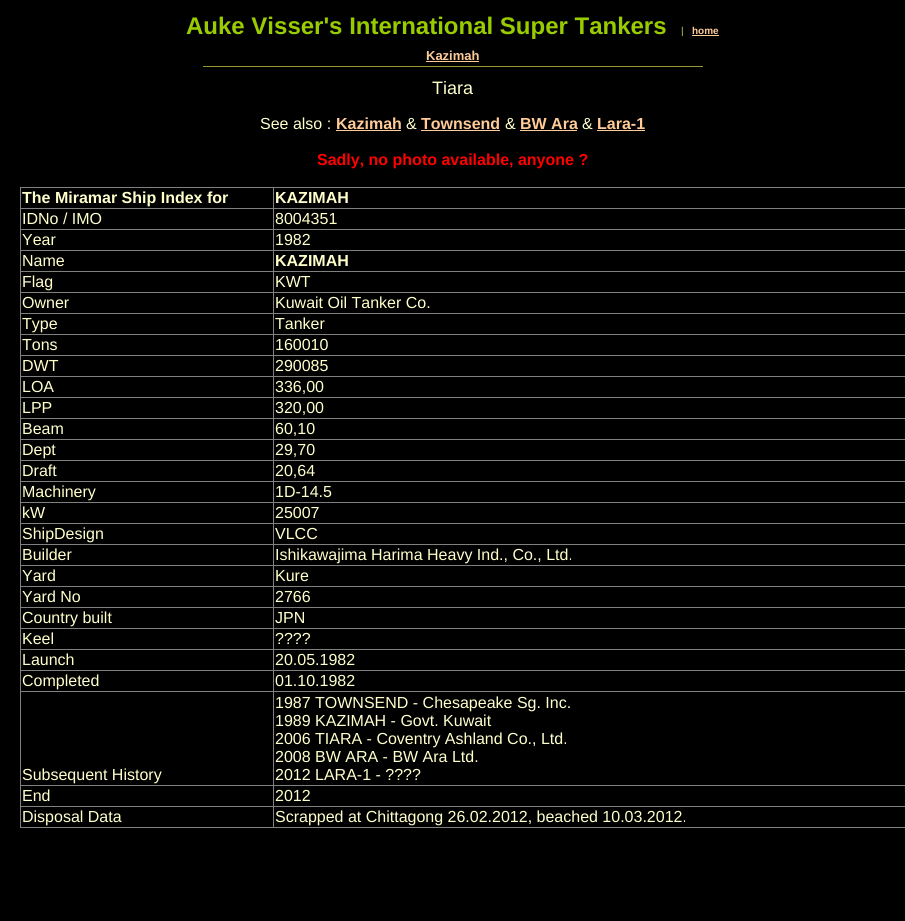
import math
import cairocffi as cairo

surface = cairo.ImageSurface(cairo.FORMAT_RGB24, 905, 921)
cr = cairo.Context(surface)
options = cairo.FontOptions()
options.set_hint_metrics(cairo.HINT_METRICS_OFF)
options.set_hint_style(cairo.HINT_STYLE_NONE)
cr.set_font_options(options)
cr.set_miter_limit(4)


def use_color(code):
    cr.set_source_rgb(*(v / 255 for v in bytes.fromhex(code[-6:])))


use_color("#000000")
cr.paint()
cr.select_font_face("Liberation Sans", cairo.FONT_SLANT_NORMAL, cairo.FONT_WEIGHT_BOLD)
cr.set_font_size(24)
use_color("#99cc00")
cr.move_to(186, 34)
cr.show_text("Auke Visser's International Super Tankers")
cr.select_font_face("Liberation Sans")
cr.set_font_size(10)
use_color("#cccc66")
cr.move_to(681, 34)
cr.show_text("|")
cr.select_font_face("Liberation Sans", cairo.FONT_SLANT_NORMAL, cairo.FONT_WEIGHT_BOLD)
use_color("#ffcc99")
cr.move_to(692, 34)
cr.show_text("home")
cr.rectangle(692, 35, 27, 1)
cr.fill()
cr.set_font_size(13)
cr.move_to(426, 60)
cr.show_text("Kazimah")
cr.rectangle(426, 61, 53, 1)
cr.fill()
use_color("#999933")
cr.rectangle(203, 66, 500, 1)
cr.fill()
cr.select_font_face("Liberation Sans")
cr.set_font_size(18)
use_color("#ffffcc")
cr.move_to(432, 94)
cr.show_text("Tiara")
cr.set_font_size(16)
cr.move_to(260, 129)
cr.show_text("See also :")
cr.select_font_face("Liberation Sans", cairo.FONT_SLANT_NORMAL, cairo.FONT_WEIGHT_BOLD)
use_color("#ffcc99")
cr.move_to(336, 129)
cr.show_text("Kazimah")
cr.rectangle(336, 130, 65, 1)
cr.fill()
cr.select_font_face("Liberation Sans")
use_color("#ffffcc")
cr.move_to(406, 129)
cr.show_text("&")
cr.select_font_face("Liberation Sans", cairo.FONT_SLANT_NORMAL, cairo.FONT_WEIGHT_BOLD)
use_color("#ffcc99")
cr.move_to(421, 129)
cr.show_text("Townsend")
cr.rectangle(421, 130, 79, 1)
cr.fill()
cr.select_font_face("Liberation Sans")
use_color("#ffffcc")
cr.move_to(505, 129)
cr.show_text("&")
cr.select_font_face("Liberation Sans", cairo.FONT_SLANT_NORMAL, cairo.FONT_WEIGHT_BOLD)
use_color("#ffcc99")
cr.move_to(520, 129)
cr.show_text("BW Ara")
cr.rectangle(520, 130, 57, 1)
cr.fill()
cr.select_font_face("Liberation Sans")
use_color("#ffffcc")
cr.move_to(582, 129)
cr.show_text("&")
cr.select_font_face("Liberation Sans", cairo.FONT_SLANT_NORMAL, cairo.FONT_WEIGHT_BOLD)
use_color("#ffcc99")
cr.move_to(597, 129)
cr.show_text("Lara-1")
cr.rectangle(597, 130, 48, 1)
cr.fill()
use_color("#ff0000")
cr.move_to(317, 165)
cr.show_text("Sadly, no photo available, anyone ?")
use_color("#808080")
cr.rectangle(20, 187, 885, 1)
cr.fill()
cr.rectangle(20, 827, 885, 1)
cr.fill()
cr.rectangle(20, 187, 1, 641)
cr.fill()
use_color("#ffffcc")
cr.move_to(22, 203)
cr.show_text("The Miramar Ship Index for")
use_color("#808080")
cr.rectangle(273, 208, 632, 1)
cr.fill()
cr.rectangle(273, 229, 632, 1)
cr.fill()
cr.rectangle(273, 250, 632, 1)
cr.fill()
cr.rectangle(273, 271, 632, 1)
cr.fill()
cr.rectangle(273, 292, 632, 1)
cr.fill()
cr.rectangle(273, 313, 632, 1)
cr.fill()
cr.rectangle(273, 334, 632, 1)
cr.fill()
cr.rectangle(273, 355, 632, 1)
cr.fill()
cr.rectangle(273, 376, 632, 1)
cr.fill()
cr.rectangle(273, 397, 632, 1)
cr.fill()
cr.rectangle(273, 418, 632, 1)
cr.fill()
cr.rectangle(273, 439, 632, 1)
cr.fill()
cr.rectangle(273, 460, 632, 1)
cr.fill()
cr.rectangle(273, 481, 632, 1)
cr.fill()
cr.rectangle(273, 502, 632, 1)
cr.fill()
cr.rectangle(273, 523, 632, 1)
cr.fill()
cr.rectangle(273, 544, 632, 1)
cr.fill()
cr.rectangle(273, 565, 632, 1)
cr.fill()
cr.rectangle(273, 586, 632, 1)
cr.fill()
cr.rectangle(273, 607, 632, 1)
cr.fill()
cr.rectangle(273, 628, 632, 1)
cr.fill()
cr.rectangle(273, 649, 632, 1)
cr.fill()
cr.rectangle(273, 670, 632, 1)
cr.fill()
cr.rectangle(273, 691, 632, 1)
cr.fill()
cr.rectangle(273, 785, 632, 1)
cr.fill()
cr.rectangle(273, 806, 632, 1)
cr.fill()
cr.rectangle(273, 806, 1, 22)
cr.fill()
cr.rectangle(20, 806, 254, 1)
cr.fill()
cr.rectangle(273, 785, 1, 22)
cr.fill()
cr.rectangle(20, 785, 254, 1)
cr.fill()
cr.rectangle(273, 691, 1, 95)
cr.fill()
cr.rectangle(20, 691, 254, 1)
cr.fill()
cr.rectangle(273, 670, 1, 22)
cr.fill()
cr.rectangle(20, 670, 254, 1)
cr.fill()
cr.rectangle(273, 649, 1, 22)
cr.fill()
cr.rectangle(20, 649, 254, 1)
cr.fill()
cr.rectangle(273, 628, 1, 22)
cr.fill()
cr.rectangle(20, 628, 254, 1)
cr.fill()
cr.rectangle(273, 607, 1, 22)
cr.fill()
cr.rectangle(20, 607, 254, 1)
cr.fill()
cr.rectangle(273, 586, 1, 22)
cr.fill()
cr.rectangle(20, 586, 254, 1)
cr.fill()
cr.rectangle(273, 565, 1, 22)
cr.fill()
cr.rectangle(20, 565, 254, 1)
cr.fill()
cr.rectangle(273, 544, 1, 22)
cr.fill()
cr.rectangle(20, 544, 254, 1)
cr.fill()
cr.rectangle(273, 523, 1, 22)
cr.fill()
cr.rectangle(20, 523, 254, 1)
cr.fill()
cr.rectangle(273, 502, 1, 22)
cr.fill()
cr.rectangle(20, 502, 254, 1)
cr.fill()
cr.rectangle(273, 481, 1, 22)
cr.fill()
cr.rectangle(20, 481, 254, 1)
cr.fill()
cr.rectangle(273, 460, 1, 22)
cr.fill()
cr.rectangle(20, 460, 254, 1)
cr.fill()
cr.rectangle(273, 439, 1, 22)
cr.fill()
cr.rectangle(20, 439, 254, 1)
cr.fill()
cr.rectangle(273, 418, 1, 22)
cr.fill()
cr.rectangle(20, 418, 254, 1)
cr.fill()
cr.rectangle(273, 397, 1, 22)
cr.fill()
cr.rectangle(20, 397, 254, 1)
cr.fill()
cr.rectangle(273, 376, 1, 22)
cr.fill()
cr.rectangle(20, 376, 254, 1)
cr.fill()
cr.rectangle(273, 355, 1, 22)
cr.fill()
cr.rectangle(20, 355, 254, 1)
cr.fill()
cr.rectangle(273, 334, 1, 22)
cr.fill()
cr.rectangle(20, 334, 254, 1)
cr.fill()
cr.rectangle(273, 313, 1, 22)
cr.fill()
cr.rectangle(20, 313, 254, 1)
cr.fill()
cr.rectangle(273, 292, 1, 22)
cr.fill()
cr.rectangle(20, 292, 254, 1)
cr.fill()
cr.rectangle(273, 271, 1, 22)
cr.fill()
cr.rectangle(20, 271, 254, 1)
cr.fill()
cr.rectangle(273, 250, 1, 22)
cr.fill()
cr.rectangle(20, 250, 254, 1)
cr.fill()
cr.rectangle(273, 229, 1, 22)
cr.fill()
cr.rectangle(20, 229, 254, 1)
cr.fill()
cr.rectangle(273, 208, 1, 22)
cr.fill()
cr.rectangle(20, 208, 254, 1)
cr.fill()
cr.rectangle(273, 187, 1, 22)
cr.fill()
use_color("#ffffcc")
cr.move_to(275, 203)
cr.show_text("KAZIMAH")
cr.select_font_face("Liberation Sans")
cr.move_to(22, 224)
cr.show_text("IDNo / IMO")
cr.move_to(275, 224)
cr.show_text("8004351")
cr.move_to(22, 245)
cr.show_text("Year")
cr.move_to(275, 245)
cr.show_text("1982")
cr.move_to(22, 266)
cr.show_text("Name")
cr.select_font_face("Liberation Sans", cairo.FONT_SLANT_NORMAL, cairo.FONT_WEIGHT_BOLD)
cr.move_to(275, 266)
cr.show_text("KAZIMAH")
cr.select_font_face("Liberation Sans")
cr.move_to(22, 287)
cr.show_text("Flag")
cr.move_to(275, 287)
cr.show_text("KWT")
cr.move_to(22, 308)
cr.show_text("Owner")
cr.move_to(275, 308)
cr.show_text("Kuwait Oil Tanker Co.")
cr.move_to(22, 329)
cr.show_text("Type")
cr.move_to(275, 329)
cr.show_text("Tanker")
cr.move_to(22, 350)
cr.show_text("Tons")
cr.move_to(275, 350)
cr.show_text("160010")
cr.move_to(22, 371)
cr.show_text("DWT")
cr.move_to(275, 371)
cr.show_text("290085")
cr.move_to(22, 392)
cr.show_text("LOA")
cr.move_to(275, 392)
cr.show_text("336,00")
cr.move_to(22, 413)
cr.show_text("LPP")
cr.move_to(275, 413)
cr.show_text("320,00")
cr.move_to(22, 434)
cr.show_text("Beam")
cr.move_to(275, 434)
cr.show_text("60,10")
cr.move_to(22, 455)
cr.show_text("Dept")
cr.move_to(275, 455)
cr.show_text("29,70")
cr.move_to(22, 476)
cr.show_text("Draft")
cr.move_to(275, 476)
cr.show_text("20,64")
cr.move_to(22, 497)
cr.show_text("Machinery")
cr.move_to(275, 497)
cr.show_text("1D-14.5")
cr.move_to(22, 518)
cr.show_text("kW")
cr.move_to(275, 518)
cr.show_text("25007")
cr.move_to(22, 539)
cr.show_text("ShipDesign")
cr.move_to(275, 539)
cr.show_text("VLCC")
cr.move_to(22, 560)
cr.show_text("Builder")
cr.move_to(275, 560)
cr.show_text("Ishikawajima Harima Heavy Ind., Co., Ltd.")
cr.move_to(22, 581)
cr.show_text("Yard")
cr.move_to(275, 581)
cr.show_text("Kure")
cr.move_to(22, 602)
cr.show_text("Yard No")
cr.move_to(275, 602)
cr.show_text("2766")
cr.move_to(22, 623)
cr.show_text("Country built")
cr.move_to(275, 623)
cr.show_text("JPN")
cr.move_to(22, 644)
cr.show_text("Keel")
cr.move_to(275, 644)
cr.show_text("????")
cr.move_to(22, 665)
cr.show_text("Launch")
cr.move_to(275, 665)
cr.show_text("20.05.1982")
cr.move_to(22, 686)
cr.show_text("Completed")
cr.move_to(275, 686)
cr.show_text("01.10.1982")
cr.move_to(22, 780)
cr.show_text("Subsequent History")
cr.move_to(275, 708)
cr.show_text("1987 TOWNSEND - Chesapeake Sg. Inc.")
cr.move_to(275, 726)
cr.show_text("1989 KAZIMAH - Govt. Kuwait")
cr.move_to(275, 744)
cr.show_text("2006 TIARA - Coventry Ashland Co., Ltd.")
cr.move_to(275, 762)
cr.show_text("2008 BW ARA - BW Ara Ltd.")
cr.move_to(275, 780)
cr.show_text("2012 LARA-1 - ????")
cr.move_to(22, 801)
cr.show_text("End")
cr.move_to(275, 801)
cr.show_text("2012")
cr.move_to(22, 822)
cr.show_text("Disposal Data")
cr.move_to(275, 822)
cr.show_text("Scrapped at Chittagong 26.02.2012, beached 10.03.2012.")
surface.write_to_png("result.png")
